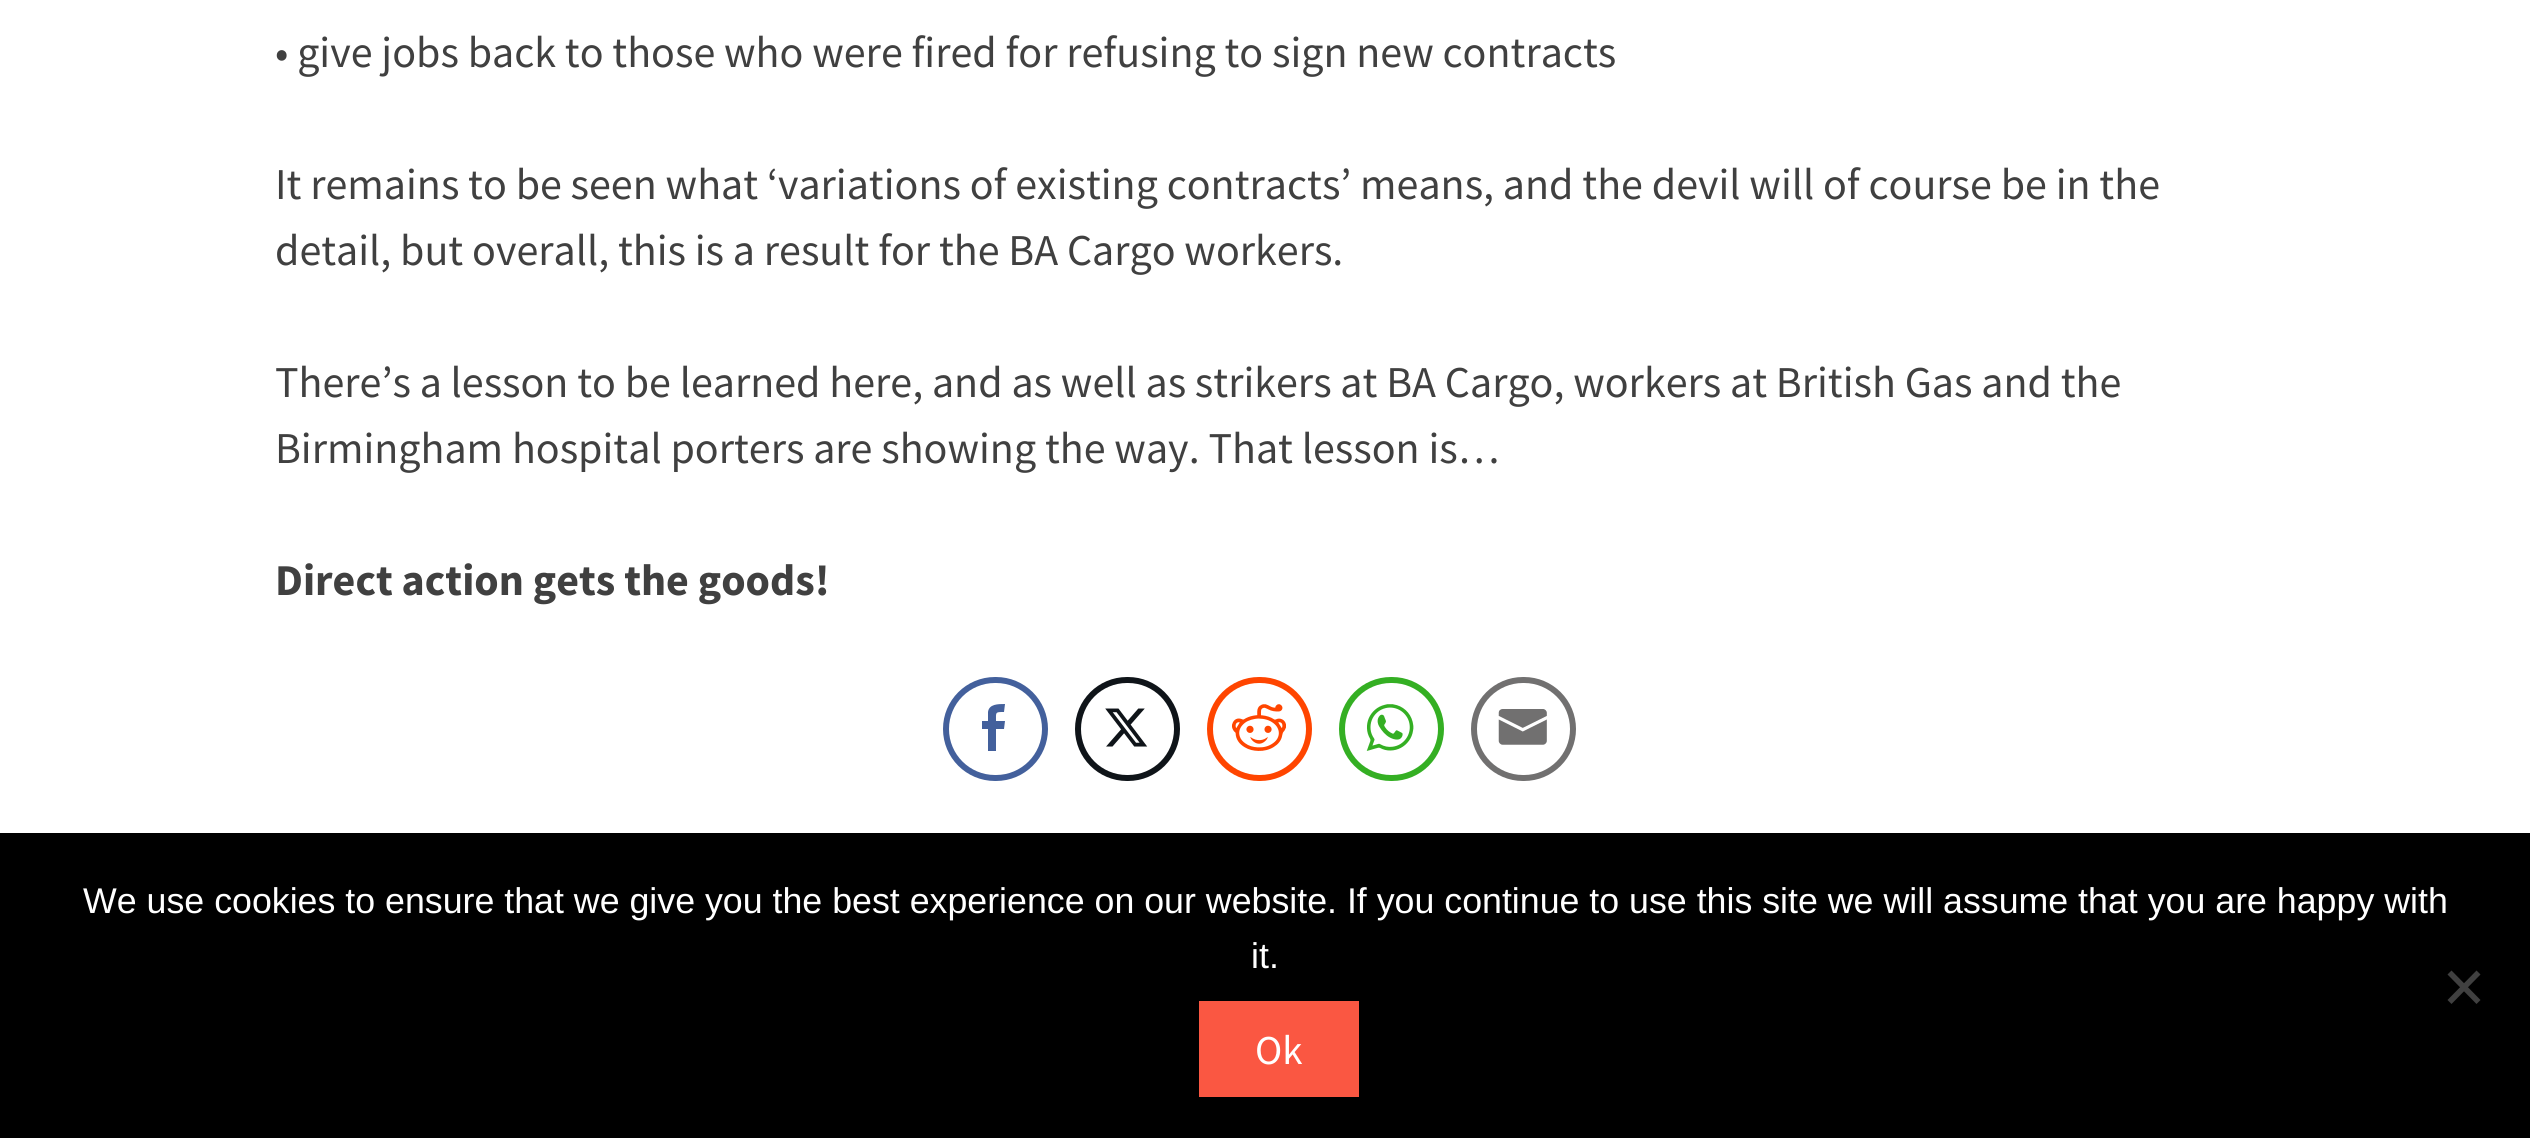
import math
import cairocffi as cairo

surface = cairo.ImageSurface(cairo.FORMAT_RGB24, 2530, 1138)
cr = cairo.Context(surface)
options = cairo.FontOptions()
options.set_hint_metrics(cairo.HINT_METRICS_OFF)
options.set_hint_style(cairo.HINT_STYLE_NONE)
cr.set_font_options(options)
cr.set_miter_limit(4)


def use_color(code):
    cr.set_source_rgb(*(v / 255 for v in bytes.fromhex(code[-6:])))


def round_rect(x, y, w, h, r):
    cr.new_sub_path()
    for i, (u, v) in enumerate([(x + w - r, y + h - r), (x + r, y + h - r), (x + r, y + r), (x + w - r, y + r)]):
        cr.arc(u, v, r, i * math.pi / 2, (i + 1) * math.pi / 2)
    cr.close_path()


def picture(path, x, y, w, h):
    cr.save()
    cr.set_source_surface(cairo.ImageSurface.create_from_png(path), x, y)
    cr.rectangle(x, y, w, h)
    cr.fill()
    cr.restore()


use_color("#ffffff")
cr.paint()
cr.select_font_face("Source Sans Pro")
cr.set_font_size(44)
use_color("#404040")
cr.move_to(275, 67)
cr.show_text("• give jobs back to those who were fired for refusing to sign new contracts")
cr.move_to(275, 199)
cr.show_text("It remains to be seen what ‘variations of existing contracts’ means, and the devil will of course be in the")
cr.move_to(275, 265)
cr.show_text("detail, but overall, this is a result for the BA Cargo workers.")
cr.move_to(275, 397)
cr.show_text("There’s a lesson to be learned here, and as well as strikers at BA Cargo, workers at British Gas and the")
cr.move_to(275, 463)
cr.show_text("Birmingham hospital porters are showing the way. That lesson is…")
cr.select_font_face("Source Sans Pro", cairo.FONT_SLANT_NORMAL, cairo.FONT_WEIGHT_BOLD)
cr.move_to(275, 595)
cr.show_text("Direct action gets the goods!")
round_rect(946, 680, 99, 98, 49)
use_color("#43609c")
cr.set_line_width(6)
cr.stroke()
cr.new_path()
cr.move_to(982, 729)
cr.line_to(982, 721)
cr.line_to(988, 721)
cr.line_to(988, 712)
cr.curve_to(989, 704, 998, 704, 1005, 704)
cr.line_to(1004, 712)
cr.curve_to(995, 712, 996, 712, 996, 721)
cr.line_to(1005, 721)
cr.line_to(1004, 729)
cr.line_to(996, 729)
cr.line_to(996, 751)
cr.line_to(988, 751)
cr.line_to(988, 729)
cr.close_path()
cr.fill()
round_rect(1078, 680, 99, 98, 49)
use_color("#0f1419")
cr.stroke()
picture("img1.png", 1105, 708, 43, 39)
round_rect(1210, 680, 99, 98, 49)
use_color("#ff4500")
cr.stroke()
picture("img2.png", 1232, 704, 54, 47)
round_rect(1342, 680, 99, 98, 49)
use_color("#34af23")
cr.stroke()
picture("img3.png", 1366, 704, 48, 47)
round_rect(1474, 680, 99, 98, 49)
use_color("#717070")
cr.stroke()
picture("img4.png", 1498, 709, 49, 36)
use_color("#000000")
cr.rectangle(0, 833, 2530, 305)
cr.fill()
cr.select_font_face("Liberation Sans")
cr.set_font_size(35.75)
use_color("#ffffff")
cr.move_to(83, 913)
cr.show_text("We use cookies to ensure that we give you the best experience on our website. If you continue to use this site we will assume that you are happy with")
cr.move_to(1251, 968)
cr.show_text("it.")
use_color("#404040")
cr.new_path()
cr.move_to(2476.5, 970.5)
cr.line_to(2480.5, 974.5)
cr.line_to(2451.5, 1004)
cr.line_to(2447.5, 1000)
cr.close_path()
cr.fill()
cr.new_path()
cr.move_to(2447.5, 974.5)
cr.line_to(2451.5, 970.5)
cr.line_to(2480.5, 1000)
cr.line_to(2476.5, 1004)
cr.close_path()
cr.fill()
use_color("#fa5742")
cr.rectangle(1199, 1001, 160, 96)
cr.fill()
cr.select_font_face("Source Sans Pro")
cr.set_font_size(41)
use_color("#ffffff")
cr.move_to(1255, 1064)
cr.show_text("Ok")
surface.write_to_png("result.png")
